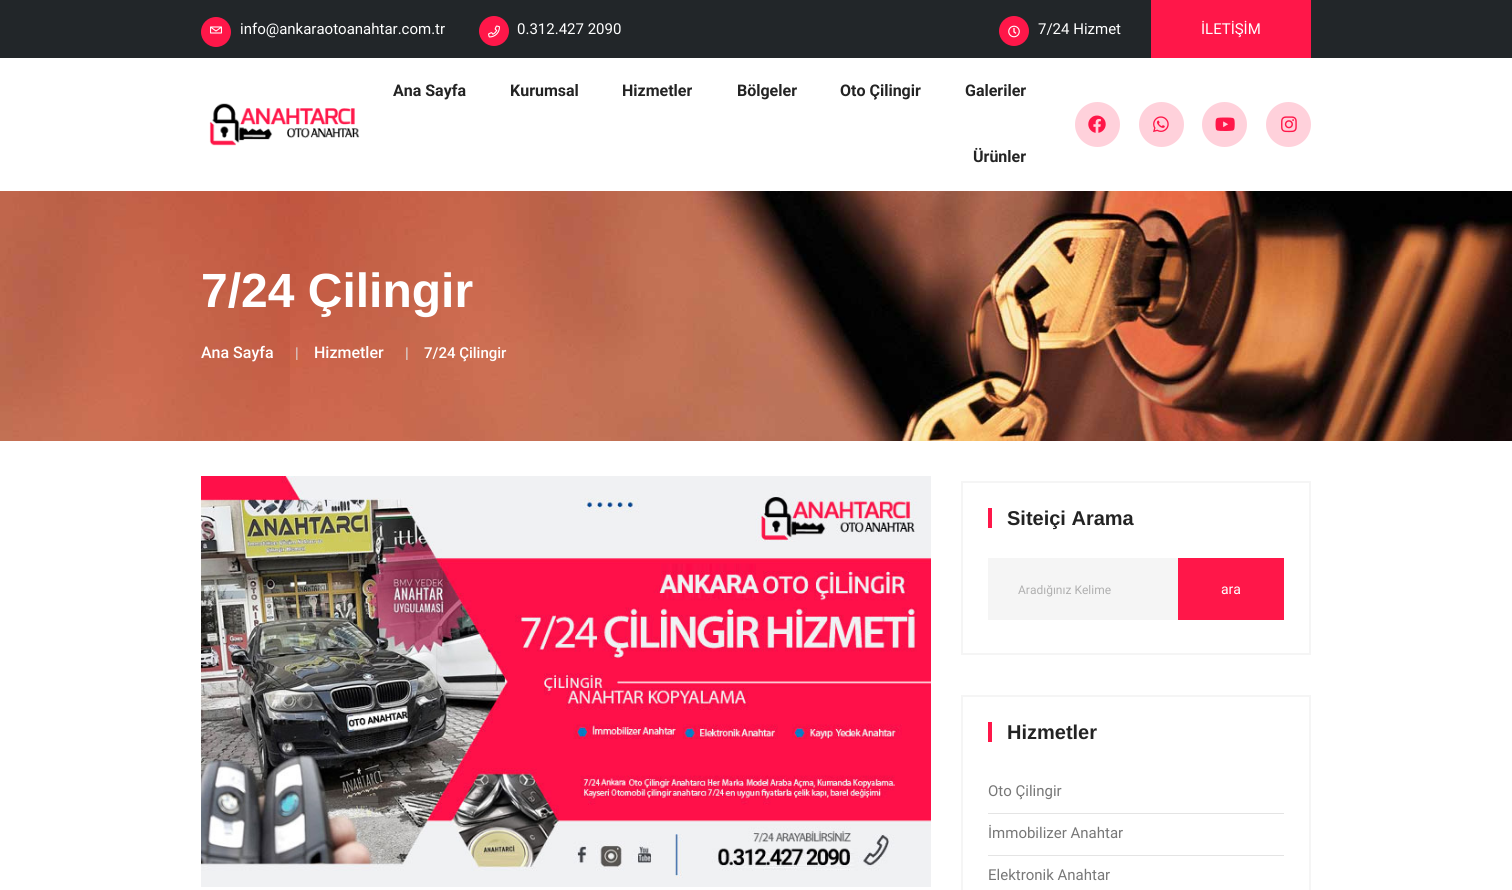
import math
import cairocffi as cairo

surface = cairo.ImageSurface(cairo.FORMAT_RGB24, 1512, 890)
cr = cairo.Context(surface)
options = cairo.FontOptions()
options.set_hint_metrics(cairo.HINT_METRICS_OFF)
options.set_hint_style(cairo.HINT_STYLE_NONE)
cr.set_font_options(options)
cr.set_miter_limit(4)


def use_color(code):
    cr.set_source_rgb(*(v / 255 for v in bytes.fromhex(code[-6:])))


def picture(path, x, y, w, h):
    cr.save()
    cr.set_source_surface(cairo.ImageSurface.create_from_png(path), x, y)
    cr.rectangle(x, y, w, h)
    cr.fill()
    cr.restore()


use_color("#ffffff")
cr.paint()
use_color("#222629")
cr.rectangle(0, 0, 1512, 58)
cr.fill()
use_color("#ff1749")
cr.arc(216, 32, 15, 0, 2 * math.pi)
cr.fill()
picture("img1.png", 210, 26, 13, 8)
cr.select_font_face("Roboto")
cr.set_font_size(15)
use_color("#ffffff")
cr.move_to(240, 34)
cr.show_text("info@ankaraotoanahtar.com.tr")
use_color("#ff1749")
cr.new_path()
cr.arc(494, 31, 15, 0, 2 * math.pi)
cr.fill()
picture("img2.png", 488, 25, 12, 13)
use_color("#ffffff")
cr.move_to(517, 34)
cr.show_text("0.312.427 2090")
use_color("#ff1749")
cr.new_path()
cr.arc(1014, 31, 15, 0, 2 * math.pi)
cr.fill()
picture("img3.png", 1008, 25, 12, 13)
use_color("#ffffff")
cr.move_to(1038, 34)
cr.show_text("7/24 Hizmet")
use_color("#ff1749")
cr.rectangle(1151, 0, 160, 58)
cr.fill()
use_color("#ffffff")
cr.move_to(1201, 34)
cr.show_text("İLETİŞİM")
picture("img4.png", 209, 103, 151, 43)
cr.select_font_face("Roboto", cairo.FONT_SLANT_NORMAL, cairo.FONT_WEIGHT_BOLD)
cr.set_font_size(16)
use_color("#232323")
cr.move_to(393, 96)
cr.show_text("Ana Sayfa")
cr.move_to(510, 96)
cr.show_text("Kurumsal")
cr.move_to(622, 96)
cr.show_text("Hizmetler")
cr.move_to(737, 96)
cr.show_text("Bölgeler")
cr.move_to(840, 96)
cr.show_text("Oto Çilingir")
cr.move_to(965, 96)
cr.show_text("Galeriler")
cr.move_to(973, 162)
cr.show_text("Ürünler")
use_color("#ffd1db")
cr.new_path()
cr.arc(1097.5, 124.5, 22.5, 0, 2 * math.pi)
cr.fill()
picture("img5.png", 1088, 115, 18, 18)
cr.arc(1161.5, 124.5, 22.5, 0, 2 * math.pi)
cr.fill()
picture("img6.png", 1153, 116, 16, 17)
cr.arc(1224.5, 124.5, 22.5, 0, 2 * math.pi)
cr.fill()
picture("img7.png", 1215, 117, 20, 14)
cr.arc(1288.5, 124.5, 22.5, 0, 2 * math.pi)
cr.fill()
picture("img8.png", 1281, 116, 16, 17)
picture("img9.png", 0, 191, 1512, 250)
cr.select_font_face("Liberation Sans", cairo.FONT_SLANT_NORMAL, cairo.FONT_WEIGHT_BOLD)
cr.set_font_size(48)
use_color("#ffffff")
cr.move_to(201, 307)
cr.show_text("7/24 Çilingir")
cr.select_font_face("Roboto Medium")
cr.set_font_size(16)
cr.move_to(201, 358)
cr.show_text("Ana Sayfa")
cr.select_font_face("Roboto")
cr.set_font_size(15)
use_color("#dddddd")
cr.move_to(295, 358)
cr.show_text("|")
cr.select_font_face("Roboto Medium")
cr.set_font_size(16)
use_color("#ffffff")
cr.move_to(314, 358)
cr.show_text("Hizmetler")
cr.set_font_size(15)
use_color("#dddddd")
cr.move_to(405, 358)
cr.show_text("|")
use_color("#ffffff")
cr.move_to(424, 358)
cr.show_text("7/24 Çilingir")
picture("img10.png", 201, 476, 730, 411)
cr.rectangle(962, 482, 348, 172)
use_color("#f5f5f5")
cr.stroke()
use_color("#ff1749")
cr.rectangle(988, 508, 4, 20)
cr.fill()
cr.select_font_face("Liberation Sans", cairo.FONT_SLANT_NORMAL, cairo.FONT_WEIGHT_BOLD)
cr.set_font_size(20)
use_color("#232323")
cr.move_to(1007, 525)
cr.show_text("Siteiçi Arama")
use_color("#f5f5f5")
cr.rectangle(988, 558, 190, 62)
cr.fill()
cr.select_font_face("Roboto")
cr.set_font_size(12)
use_color("#b0b0b0")
cr.move_to(1018, 594)
cr.show_text("Aradığınız Kelime")
use_color("#ff1749")
cr.rectangle(1178, 558, 106, 62)
cr.fill()
cr.set_font_size(14)
use_color("#ffffff")
cr.move_to(1221, 594)
cr.show_text("ara")
cr.rectangle(962, 696, 348, 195)
use_color("#f5f5f5")
cr.stroke()
use_color("#ff1749")
cr.rectangle(988, 722, 4, 20)
cr.fill()
cr.select_font_face("Liberation Sans", cairo.FONT_SLANT_NORMAL, cairo.FONT_WEIGHT_BOLD)
cr.set_font_size(20)
use_color("#232323")
cr.move_to(1007, 739)
cr.show_text("Hizmetler")
use_color("#e4e4e4")
cr.rectangle(988, 813, 296, 1)
cr.fill()
cr.select_font_face("Roboto")
cr.set_font_size(15)
use_color("#777777")
cr.move_to(988, 796)
cr.show_text("Oto Çilingir")
use_color("#e4e4e4")
cr.rectangle(988, 855, 296, 1)
cr.fill()
use_color("#777777")
cr.move_to(988, 838)
cr.show_text("İmmobilizer Anahtar")
cr.move_to(988, 880)
cr.show_text("Elektronik Anahtar")
surface.write_to_png("result.png")
